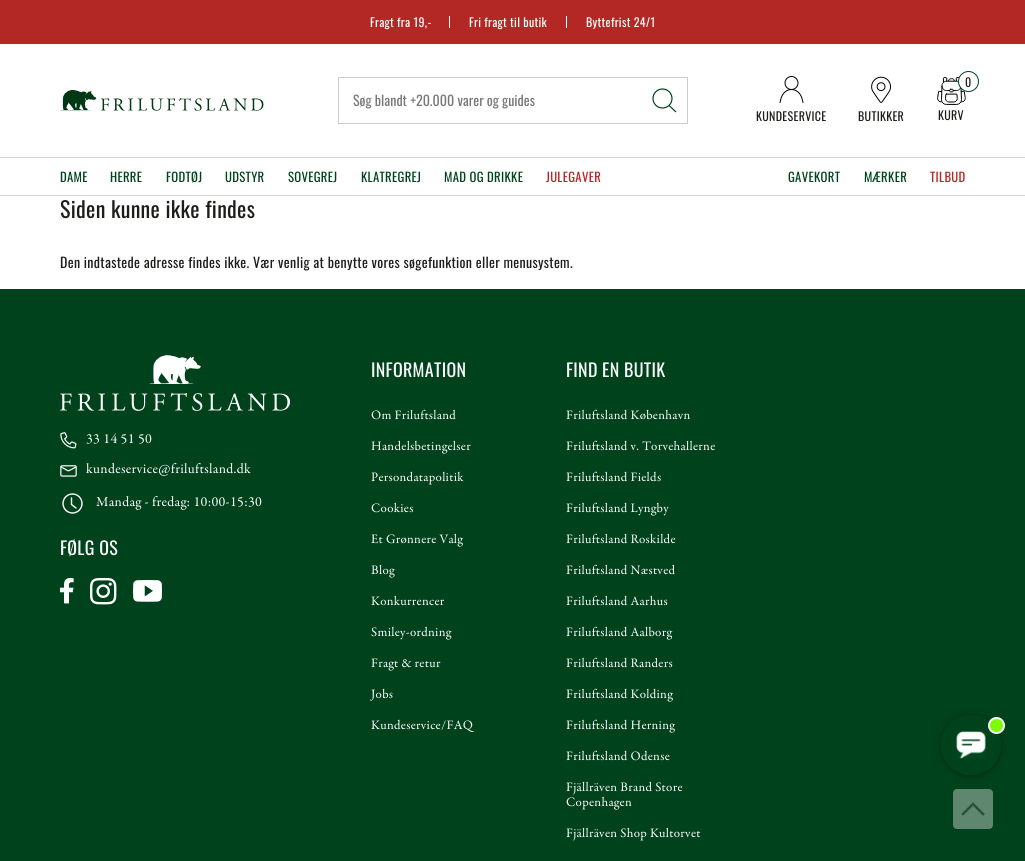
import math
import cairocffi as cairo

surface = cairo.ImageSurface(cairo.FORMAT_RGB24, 1025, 861)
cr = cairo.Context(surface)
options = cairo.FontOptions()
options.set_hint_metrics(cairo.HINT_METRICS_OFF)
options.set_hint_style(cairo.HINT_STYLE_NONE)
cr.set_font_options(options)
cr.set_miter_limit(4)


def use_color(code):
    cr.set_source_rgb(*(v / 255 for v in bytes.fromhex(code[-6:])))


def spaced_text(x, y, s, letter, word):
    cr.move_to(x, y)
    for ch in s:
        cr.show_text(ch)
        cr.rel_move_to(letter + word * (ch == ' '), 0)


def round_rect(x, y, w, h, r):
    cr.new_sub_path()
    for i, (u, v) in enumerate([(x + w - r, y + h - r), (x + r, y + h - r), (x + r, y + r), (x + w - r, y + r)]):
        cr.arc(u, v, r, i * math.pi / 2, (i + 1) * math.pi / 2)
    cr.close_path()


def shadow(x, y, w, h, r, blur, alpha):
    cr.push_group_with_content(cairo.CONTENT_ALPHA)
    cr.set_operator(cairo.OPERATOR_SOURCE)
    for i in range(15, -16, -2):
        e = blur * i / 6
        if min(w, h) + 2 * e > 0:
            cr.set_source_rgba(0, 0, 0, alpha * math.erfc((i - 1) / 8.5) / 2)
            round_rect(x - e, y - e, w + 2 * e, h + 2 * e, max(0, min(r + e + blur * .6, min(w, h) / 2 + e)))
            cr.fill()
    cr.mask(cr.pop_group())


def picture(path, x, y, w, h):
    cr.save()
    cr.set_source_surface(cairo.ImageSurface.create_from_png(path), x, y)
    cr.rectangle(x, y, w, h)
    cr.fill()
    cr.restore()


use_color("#ffffff")
cr.paint()
use_color("#b32825")
cr.rectangle(0, 0, 1025, 44)
cr.fill()
cr.select_font_face("Oswald")
cr.set_font_size(12)
use_color("#ffffff")
spaced_text(370, 27, "Fragt fra 19,-", 0.3, 0)
cr.rectangle(449, 16, 1, 12)
cr.fill()
spaced_text(469, 27, "Fri fragt til butik", 0.3, 0)
cr.rectangle(566, 16, 1, 12)
cr.fill()
spaced_text(586, 27, "Byttefrist 24/1", 0.3, 0)
picture("img1.png", 60, 90, 204, 21)
cr.rectangle(338.5, 77.5, 349, 46)
use_color("#cccccc")
cr.set_line_width(1)
cr.stroke()
cr.set_font_size(14)
use_color("#787878")
cr.move_to(353, 106)
cr.show_text("Søg blandt +20.000 varer og guides")
cr.new_path()
cr.arc(662.5, 98.5, 9.5, 0, 2 * math.pi)
use_color("#00421b")
cr.set_line_width(1.2)
cr.stroke()
cr.new_path()
cr.move_to(669, 105.5)
cr.line_to(676, 112)
cr.set_line_join(cairo.LINE_JOIN_BEVEL)
cr.stroke()
cr.new_path()
cr.move_to(780, 102.5)
cr.line_to(781, 98.5)
cr.curve_to(784.5, 86.5, 798.5, 86.5, 802, 98.5)
cr.line_to(803, 102.5)
use_color("#000000")
cr.set_line_width(1)
cr.set_line_cap(cairo.LINE_CAP_ROUND)
cr.set_line_join(cairo.LINE_JOIN_ROUND)
cr.stroke()
cr.arc(791.5, 83, 6.5, 0, 2 * math.pi)
cr.set_line_cap(cairo.LINE_CAP_BUTT)
cr.set_line_join(cairo.LINE_JOIN_MITER)
cr.stroke()
cr.set_font_size(12)
use_color("#1d1d1b")
spaced_text(756, 121, "KUNDESERVICE", 0.3, 0)
picture("img2.png", 871, 76, 20, 27)
spaced_text(858, 121, "BUTIKKER", 0.3, 0)
picture("img3.png", 937, 77, 29, 28)
use_color("#ffffff")
cr.arc(968.5, 81.5, 10, 0, 2 * math.pi)
cr.fill_preserve()
use_color("#00421b")
cr.stroke()
use_color("#1d1d1b")
spaced_text(965, 87, "0", 0.3, 0)
spaced_text(938, 120, "KURV", 0.3, 0)
use_color("#d8d8d8")
cr.rectangle(0, 157, 1025, 1)
cr.fill()
cr.rectangle(0, 195, 1025, 1)
cr.fill()
cr.set_font_size(12.75)
use_color("#00421b")
spaced_text(60, 182, "DAME", 0.3, 0)
spaced_text(110, 182, "HERRE", 0.3, 0)
spaced_text(166, 182, "FODTØJ", 0.3, 0)
spaced_text(225, 182, "UDSTYR", 0.3, 0)
spaced_text(288, 182, "SOVEGREJ", 0.3, 0)
spaced_text(361, 182, "KLATREGREJ", 0.3, 0)
spaced_text(444, 182, "MAD OG DRIKKE", 0.3, 0)
use_color("#b32825")
spaced_text(546, 182, "JULEGAVER", 0.3, 0)
use_color("#00421b")
spaced_text(788, 182, "GAVEKORT", 0.3, 0)
spaced_text(864, 182, "MÆRKER", 0.3, 0)
use_color("#b32825")
spaced_text(930, 182, "TILBUD", 0.3, 0)
cr.set_font_size(22)
use_color("#1d1d1b")
spaced_text(60, 218, "Siden kunne ikke findes", 0.3, 0)
cr.set_font_size(14)
spaced_text(60, 268, "Den indtastede adresse findes ikke. Vær venlig at benytte vores søgefunktion eller menusystem.", 0.3, 0)
use_color("#00421b")
cr.rectangle(0, 289, 1025, 572)
cr.fill()
picture("img4.png", 60, 355, 230, 56)
picture("img5.png", 60, 432, 17, 17)
cr.select_font_face("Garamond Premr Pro")
use_color("#ffffff")
spaced_text(86, 443, "33 14 51 50", 0.3, 0)
picture("img6.png", 60, 465, 17, 12)
spaced_text(86, 473, "kundeservice@friluftsland.dk", 0.3, 0)
cr.new_path()
cr.arc(72.5, 503.5, 9.5, 0, 2 * math.pi)
cr.set_line_width(1.4)
cr.stroke()
cr.new_path()
cr.move_to(71.5, 498)
cr.line_to(71.5, 504.5)
cr.line_to(76, 508)
cr.set_line_cap(cairo.LINE_CAP_ROUND)
cr.stroke()
spaced_text(96, 506, "Mandag - fredag: 10:00-15:30", 0.3, 0)
cr.select_font_face("Oswald")
cr.set_font_size(18)
spaced_text(60, 555, "FØLG OS", 0.3, 0)
picture("img7.png", 60, 578, 14, 26)
picture("img8.png", 90, 578, 27, 27)
picture("img9.png", 133, 580, 29, 22)
spaced_text(371, 377, "INFORMATION", 0.3, 0)
cr.select_font_face("Garamond Premr Pro")
cr.set_font_size(13)
spaced_text(371, 419, "Om Friluftsland", 0.3, 0)
spaced_text(371, 450, "Handelsbetingelser", 0.3, 0)
spaced_text(371, 481, "Persondatapolitik", 0.3, 0)
spaced_text(371, 512, "Cookies", 0.3, 0)
spaced_text(371, 543, "Et Grønnere Valg", 0.3, 0)
spaced_text(371, 574, "Blog", 0.3, 0)
spaced_text(371, 605, "Konkurrencer", 0.3, 0)
spaced_text(371, 636, "Smiley-ordning", 0.3, 0)
spaced_text(371, 667, "Fragt & retur", 0.3, 0)
spaced_text(371, 698, "Jobs", 0.3, 0)
spaced_text(371, 729, "Kundeservice/FAQ", 0.3, 0)
cr.select_font_face("Oswald")
cr.set_font_size(18)
spaced_text(566, 377, "FIND EN BUTIK", 0.3, 0)
cr.select_font_face("Garamond Premr Pro")
cr.set_font_size(13)
spaced_text(566, 419, "Friluftsland København", 0.3, 0)
spaced_text(566, 450, "Friluftsland v. Torvehallerne", 0.3, 0)
spaced_text(566, 481, "Friluftsland Fields", 0.3, 0)
spaced_text(566, 512, "Friluftsland Lyngby", 0.3, 0)
spaced_text(566, 543, "Friluftsland Roskilde", 0.3, 0)
spaced_text(566, 574, "Friluftsland Næstved", 0.3, 0)
spaced_text(566, 605, "Friluftsland Aarhus", 0.3, 0)
spaced_text(566, 636, "Friluftsland Aalborg", 0.3, 0)
spaced_text(566, 667, "Friluftsland Randers", 0.3, 0)
spaced_text(566, 698, "Friluftsland Kolding", 0.3, 0)
spaced_text(566, 729, "Friluftsland Herning", 0.3, 0)
spaced_text(566, 760, "Friluftsland Odense", 0.3, 0)
spaced_text(566, 791, "Fjällräven Brand Store", 0.3, 0)
spaced_text(566, 806, "Copenhagen", 0.3, 0)
spaced_text(566, 837, "Fjällräven Shop Kultorvet", 0.3, 0)
use_color("#5f876f")
round_rect(953, 789, 40, 40, 4)
cr.fill()
cr.new_path()
cr.move_to(963, 814)
cr.line_to(973, 804)
cr.line_to(983, 814)
use_color("#295039")
cr.set_line_width(2.5)
cr.set_line_cap(cairo.LINE_CAP_SQUARE)
cr.stroke()
cr.save()
cr.set_fill_rule(cairo.FILL_RULE_EVEN_ODD)
cr.new_path()
cr.move_to(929, 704)
cr.line_to(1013, 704)
cr.line_to(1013, 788)
cr.line_to(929, 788)
cr.close_path()
cr.move_to(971, 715)
cr.curve_to(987.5, 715, 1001, 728.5, 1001, 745)
cr.curve_to(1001, 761.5, 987.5, 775, 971, 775)
cr.curve_to(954.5, 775, 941, 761.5, 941, 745)
cr.curve_to(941, 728.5, 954.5, 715, 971, 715)
cr.close_path()
cr.clip()
use_color("#000000")
shadow(941, 716, 60, 60, 30, 3.5, 0.35)
cr.restore()
use_color("#7efa04")
cr.arc(996.5, 725.5, 7.5, 0, 2 * math.pi)
cr.fill_preserve()
use_color("#ffffff")
cr.set_line_width(2)
cr.set_line_cap(cairo.LINE_CAP_BUTT)
cr.stroke()
picture("img10.png", 956, 731, 30, 28)
surface.write_to_png("result.png")
